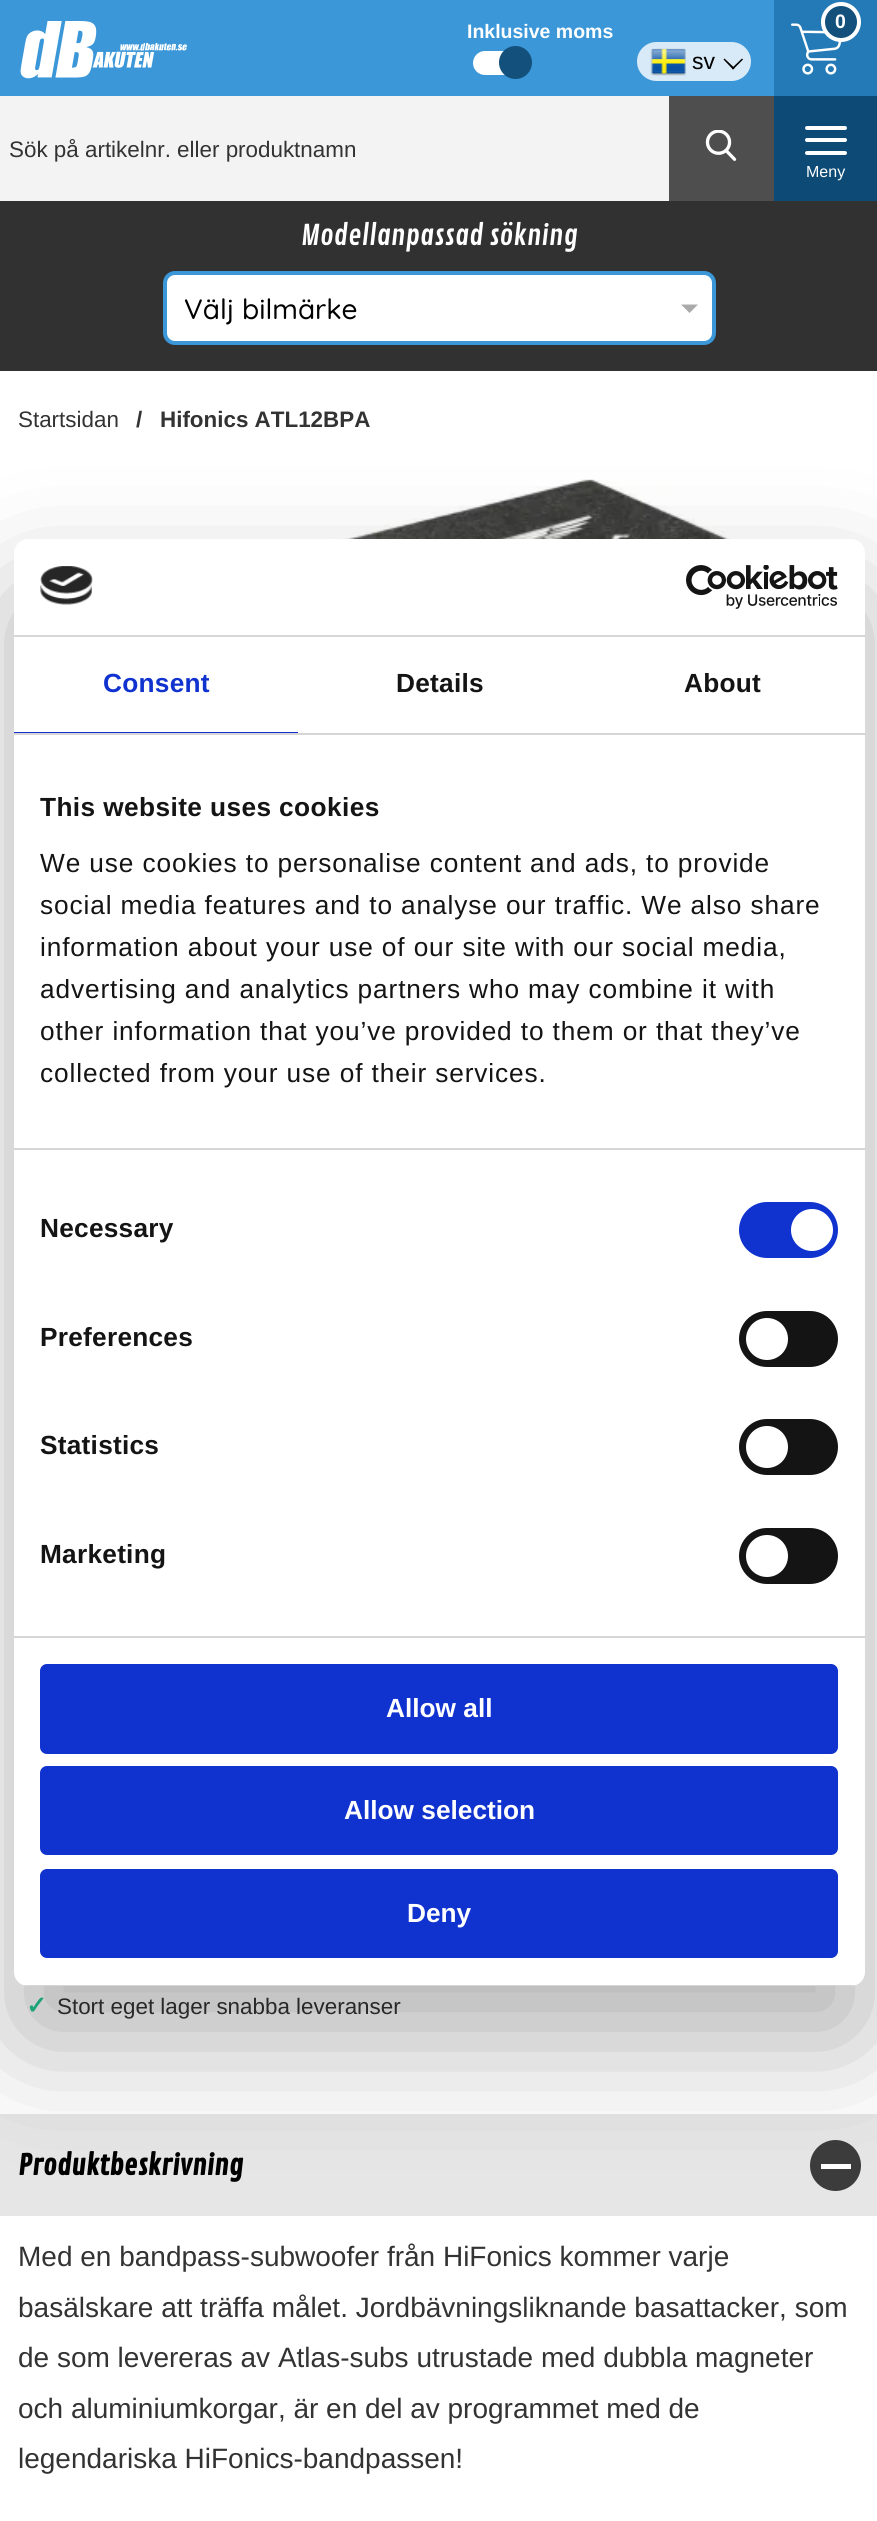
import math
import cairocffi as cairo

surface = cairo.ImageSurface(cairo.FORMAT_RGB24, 877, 2521)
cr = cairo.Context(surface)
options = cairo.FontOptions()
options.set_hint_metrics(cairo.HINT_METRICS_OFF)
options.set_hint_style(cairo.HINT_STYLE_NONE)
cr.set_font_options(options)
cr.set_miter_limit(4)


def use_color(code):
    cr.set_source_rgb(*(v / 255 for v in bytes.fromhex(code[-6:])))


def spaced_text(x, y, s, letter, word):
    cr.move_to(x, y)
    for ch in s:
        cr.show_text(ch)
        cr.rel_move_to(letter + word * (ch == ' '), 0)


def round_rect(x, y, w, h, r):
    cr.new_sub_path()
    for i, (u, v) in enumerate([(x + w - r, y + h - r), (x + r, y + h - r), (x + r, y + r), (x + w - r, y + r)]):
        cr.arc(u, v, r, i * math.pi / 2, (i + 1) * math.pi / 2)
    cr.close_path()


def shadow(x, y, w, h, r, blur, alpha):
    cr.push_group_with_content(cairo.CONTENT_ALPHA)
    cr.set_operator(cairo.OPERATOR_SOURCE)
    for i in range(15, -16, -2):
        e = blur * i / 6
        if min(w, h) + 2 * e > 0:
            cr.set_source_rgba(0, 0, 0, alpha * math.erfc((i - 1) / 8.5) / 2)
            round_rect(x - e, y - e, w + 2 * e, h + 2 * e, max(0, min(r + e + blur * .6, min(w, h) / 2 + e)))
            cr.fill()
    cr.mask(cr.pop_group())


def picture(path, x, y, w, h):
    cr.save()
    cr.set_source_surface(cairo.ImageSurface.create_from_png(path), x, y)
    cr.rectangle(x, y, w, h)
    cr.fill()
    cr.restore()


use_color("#ffffff")
cr.paint()
use_color("#3b97d8")
cr.rectangle(0, 0, 774, 96)
cr.fill()
picture("img1.png", 20, 21, 167, 58)
cr.select_font_face("Liberation Sans", cairo.FONT_SLANT_NORMAL, cairo.FONT_WEIGHT_BOLD)
cr.set_font_size(19.5)
use_color("#ffffff")
cr.move_to(467, 38)
cr.show_text("Inklusive moms")
round_rect(473, 51, 57, 24, 12)
cr.fill()
use_color("#13507b")
cr.arc(515.5, 62.5, 16.5, 0, 2 * math.pi)
cr.fill()
use_color("#247ab7")
cr.rectangle(774, 0, 103, 96)
cr.fill()
picture("img2.png", 791, 23, 51, 52)
use_color("#13507b")
cr.arc(841, 22, 18, 0, 2 * math.pi)
cr.fill_preserve()
use_color("#ffffff")
cr.set_line_width(4)
cr.stroke()
cr.move_to(835, 28)
cr.show_text("0")
use_color("#d8eaf7")
round_rect(637, 42, 114, 39, 19.5)
cr.fill()
picture("img3.png", 650, 48, 36, 28)
cr.select_font_face("Liberation Sans")
cr.set_font_size(23)
use_color("#000000")
cr.move_to(692, 69)
cr.show_text("sv")
cr.new_path()
cr.move_to(743, 59.5)
cr.line_to(733, 69.5)
cr.line_to(732, 68)
cr.line_to(742, 58.5)
cr.close_path()
cr.fill()
cr.new_path()
cr.move_to(734.5, 68)
cr.line_to(733, 69.5)
cr.line_to(723.5, 59.5)
cr.line_to(724.5, 58.5)
cr.close_path()
cr.fill()
use_color("#f3f3f3")
cr.rectangle(0, 96, 669, 105)
cr.fill()
cr.set_font_size(22.4)
use_color("#333333")
cr.move_to(9, 157)
cr.show_text("Sök på artikelnr. eller produktnamn")
use_color("#4e4e4e")
cr.rectangle(669, 96, 105, 105)
cr.fill()
picture("img4.png", 705, 130, 32, 31)
use_color("#0d4b76")
cr.rectangle(774, 96, 103, 105)
cr.fill()
use_color("#ffffff")
round_rect(805, 126, 42, 4, 2)
cr.fill()
round_rect(805, 138, 42, 4, 2)
cr.fill()
round_rect(805, 151, 42, 4, 2)
cr.fill()
cr.set_font_size(16)
cr.move_to(806, 177)
cr.show_text("Meny")
use_color("#313131")
cr.rectangle(0, 201, 877, 170)
cr.fill()
cr.select_font_face("Contrail One")
cr.set_font_size(28)
use_color("#ffffff")
cr.move_to(301, 245)
cr.show_text("Modellanpassad sökning")
round_rect(165, 273, 549, 70, 10)
cr.fill_preserve()
use_color("#3b97d8")
cr.stroke()
cr.select_font_face("Quicksand Medium")
use_color("#000000")
cr.move_to(184, 319)
cr.show_text("Välj bilmärke")
use_color("#aaaaaa")
cr.new_path()
cr.move_to(681, 304.5)
cr.line_to(698, 304.5)
cr.line_to(689.5, 313)
cr.close_path()
cr.fill()
cr.select_font_face("Liberation Sans")
cr.set_font_size(22.4)
use_color("#333333")
cr.move_to(18, 427)
cr.show_text("Startsidan")
cr.select_font_face("Liberation Sans", cairo.FONT_SLANT_NORMAL, cairo.FONT_WEIGHT_BOLD)
cr.move_to(136, 427)
cr.show_text("/")
cr.move_to(160, 427)
cr.show_text("Hifonics ATL12BPA")
picture("img5.png", 99, 479, 679, 60)
cr.select_font_face("DejaVu Sans", cairo.FONT_SLANT_NORMAL, cairo.FONT_WEIGHT_BOLD)
cr.set_font_size(25)
use_color("#25c793")
cr.move_to(26, 2014)
cr.show_text("✓")
cr.select_font_face("Liberation Sans")
cr.set_font_size(22.4)
use_color("#333333")
cr.move_to(57, 2014)
cr.show_text("Stort eget lager snabba leveranser")
use_color("#e6e6e6")
cr.rectangle(0, 2114, 877, 102)
cr.fill()
cr.select_font_face("Contrail One", cairo.FONT_SLANT_NORMAL, cairo.FONT_WEIGHT_BOLD)
cr.set_font_size(28)
use_color("#000000")
cr.move_to(18, 2175)
cr.show_text("Produktbeskrivning")
use_color("#3c3c3c")
cr.new_path()
cr.arc(835.5, 2165.5, 25.5, 0, 2 * math.pi)
cr.fill()
use_color("#ffffff")
cr.rectangle(821, 2164, 30, 5)
cr.fill()
cr.select_font_face("Liberation Sans")
use_color("#333333")
cr.move_to(18, 2266)
cr.show_text("Med en bandpass-subwoofer från HiFonics kommer varje")
cr.move_to(18, 2317)
cr.show_text("basälskare att träffa målet. Jordbävningsliknande basattacker, som")
cr.move_to(18, 2367)
cr.show_text("de som levereras av Atlas-subs utrustade med dubbla magneter")
cr.move_to(18, 2418)
cr.show_text("och aluminiumkorgar, är en del av programmet med de")
cr.move_to(18, 2468)
cr.show_text("legendariska HiFonics-bandpassen!")
use_color("#000000")
shadow(14, 595, 851, 1447, 14, 59.5, 0.3)
use_color("#ffffff")
round_rect(14, 539, 851, 1447, 14)
cr.fill()
use_color("#d6d6d6")
cr.rectangle(14, 635, 851, 2)
cr.fill()
picture("img6.png", 40, 566, 53, 39)
picture("img7.png", 686, 565, 152, 44)
cr.rectangle(14, 733, 851, 2)
cr.fill()
use_color("#1032cf")
cr.rectangle(14, 732, 284, 1)
cr.fill()
cr.select_font_face("Liberation Sans", cairo.FONT_SLANT_NORMAL, cairo.FONT_WEIGHT_BOLD)
cr.set_font_size(26.25)
spaced_text(103, 692, "Consent", 0.25, 0)
use_color("#141414")
spaced_text(396, 692, "Details", 0.25, 0)
spaced_text(684, 692, "About", 0.25, 0)
use_color("#d6d6d6")
cr.rectangle(14, 1148, 851, 2)
cr.fill()
use_color("#141414")
spaced_text(40, 816, "This website uses cookies", 0.4, 0)
cr.select_font_face("Liberation Sans")
spaced_text(40, 872, "We use cookies to personalise content and ads, to provide", 0.88, 0)
spaced_text(40, 914, "social media features and to analyse our traffic. We also share", 0.88, 0)
spaced_text(40, 956, "information about your use of our site with our social media,", 0.88, 0)
spaced_text(40, 998, "advertising and analytics partners who may combine it with", 0.88, 0)
spaced_text(40, 1040, "other information that you’ve provided to them or that they’ve", 0.88, 0)
spaced_text(40, 1082, "collected from your use of their services.", 0.88, 0)
use_color("#d6d6d6")
cr.rectangle(14, 1636, 851, 2)
cr.fill()
cr.select_font_face("Liberation Sans", cairo.FONT_SLANT_NORMAL, cairo.FONT_WEIGHT_BOLD)
use_color("#141414")
spaced_text(40, 1237, "Necessary", 0.25, 0)
use_color("#1032cf")
round_rect(739, 1202, 99, 56, 28)
cr.fill()
use_color("#ffffff")
cr.arc(812, 1230, 21, 0, 2 * math.pi)
cr.fill()
use_color("#141414")
spaced_text(40, 1346, "Preferences", 0.25, 0)
round_rect(739, 1311, 99, 56, 28)
cr.fill()
use_color("#ffffff")
cr.arc(767, 1339, 21, 0, 2 * math.pi)
cr.fill()
use_color("#141414")
spaced_text(40, 1454, "Statistics", 0.25, 0)
round_rect(739, 1419, 99, 56, 28)
cr.fill()
use_color("#ffffff")
cr.arc(767, 1447, 21, 0, 2 * math.pi)
cr.fill()
use_color("#141414")
spaced_text(40, 1563, "Marketing", 0.25, 0)
round_rect(739, 1528, 99, 56, 28)
cr.fill()
use_color("#ffffff")
cr.arc(767, 1556, 21, 0, 2 * math.pi)
cr.fill()
cr.save()
round_rect(14, 539, 851, 1447, 14)
cr.clip()
use_color("#d6d6d6")
cr.rectangle(23, 1985, 833, 1)
cr.fill()
cr.restore()
use_color("#1032cf")
round_rect(42, 1666, 794, 86, 5)
cr.fill_preserve()
cr.stroke()
use_color("#ffffff")
cr.move_to(386, 1717)
cr.show_text("Allow all")
use_color("#1032cf")
round_rect(42, 1768, 794, 85, 5)
cr.fill_preserve()
cr.stroke()
use_color("#ffffff")
cr.move_to(344, 1819)
cr.show_text("Allow selection")
use_color("#1032cf")
round_rect(42, 1871, 794, 85, 5)
cr.fill_preserve()
cr.stroke()
use_color("#ffffff")
cr.move_to(407, 1922)
cr.show_text("Deny")
surface.write_to_png("result.png")
